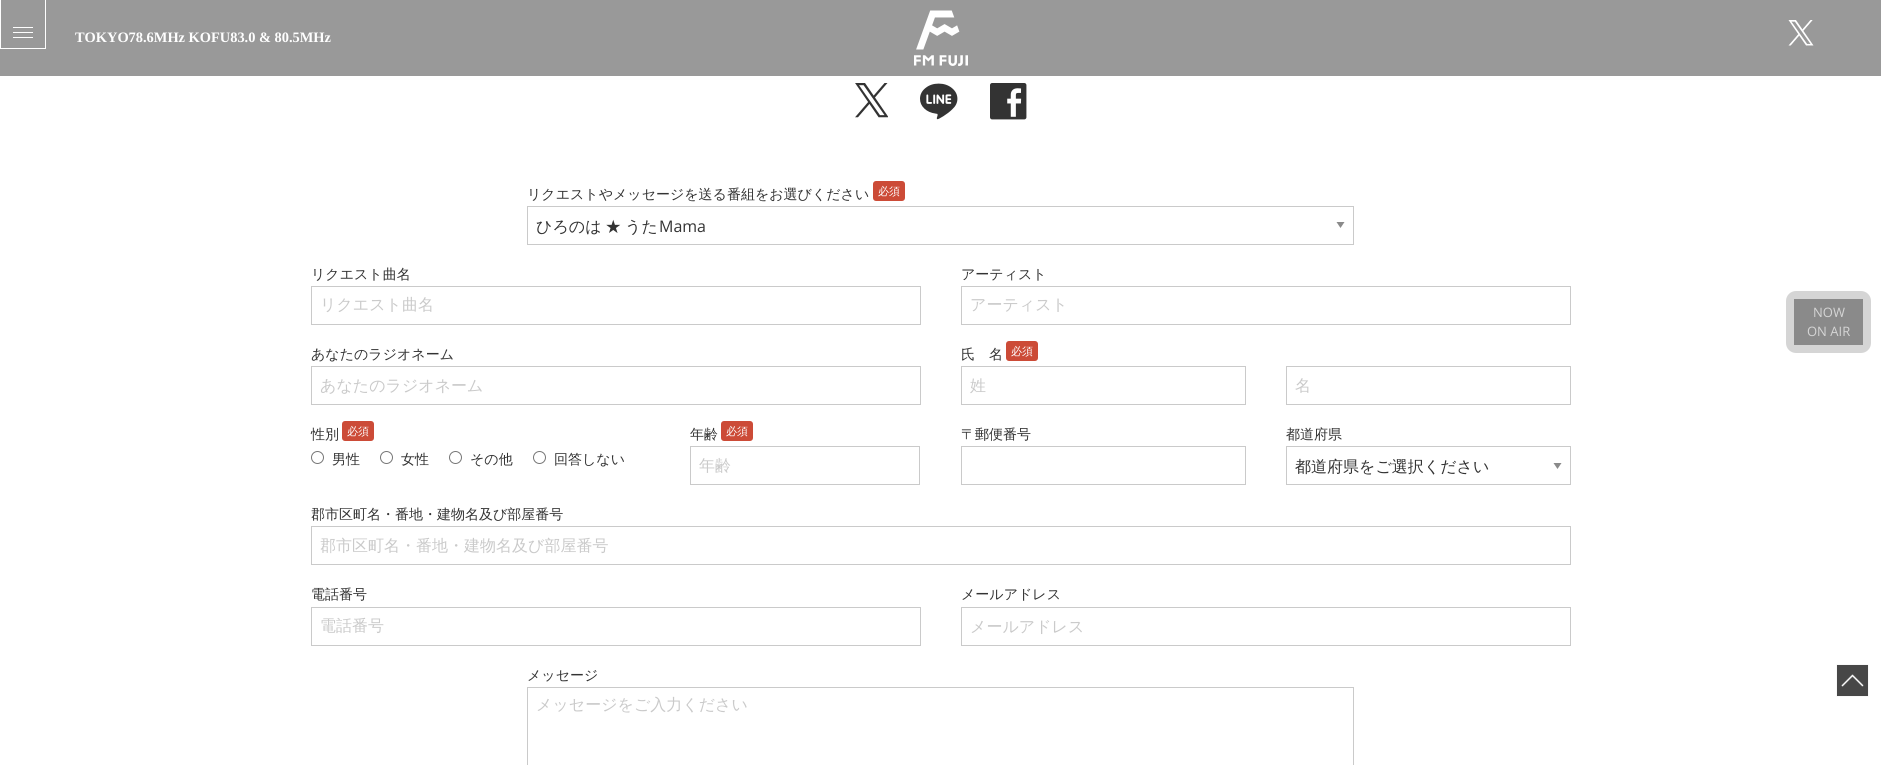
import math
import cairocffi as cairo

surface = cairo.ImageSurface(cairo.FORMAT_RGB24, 1881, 765)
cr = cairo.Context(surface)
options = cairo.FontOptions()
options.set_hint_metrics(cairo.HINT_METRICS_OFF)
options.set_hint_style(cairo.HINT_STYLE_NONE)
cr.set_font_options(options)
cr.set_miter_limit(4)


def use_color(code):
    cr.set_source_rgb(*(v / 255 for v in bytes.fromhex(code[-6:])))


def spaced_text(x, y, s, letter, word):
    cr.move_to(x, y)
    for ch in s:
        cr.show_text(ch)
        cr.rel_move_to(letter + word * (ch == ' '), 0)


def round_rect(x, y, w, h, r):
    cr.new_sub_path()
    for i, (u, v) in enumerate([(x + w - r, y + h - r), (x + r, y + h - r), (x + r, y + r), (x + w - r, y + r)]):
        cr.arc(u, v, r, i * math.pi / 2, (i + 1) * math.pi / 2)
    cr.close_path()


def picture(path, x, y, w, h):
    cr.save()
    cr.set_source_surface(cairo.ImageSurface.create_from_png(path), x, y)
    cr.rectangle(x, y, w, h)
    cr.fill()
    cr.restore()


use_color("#ffffff")
cr.paint()
use_color("#999999")
cr.rectangle(0, 0, 1881, 76)
cr.fill()
use_color("#fefefe")
cr.rectangle(45, 0, 1, 49)
cr.fill()
cr.rectangle(0, 48, 46, 1)
cr.fill()
cr.rectangle(0, 0, 1, 49)
cr.fill()
cr.rectangle(13, 32, 20, 1)
cr.fill()
cr.rectangle(13, 27, 20, 1)
cr.fill()
cr.rectangle(13, 37, 20, 1)
cr.fill()
cr.select_font_face("Liberation Serif", cairo.FONT_SLANT_NORMAL, cairo.FONT_WEIGHT_BOLD)
cr.set_font_size(14.4)
cr.move_to(75, 42)
cr.show_text("TOKYO78.6MHz KOFU83.0 & 80.5MHz")
picture("img1.png", 914, 10, 54, 56)
picture("img2.png", 1788, 20, 26, 26)
picture("img3.png", 855, 83, 33, 35)
picture("img4.png", 920, 83, 38, 37)
picture("img5.png", 990, 83, 37, 37)
cr.select_font_face("WenQuanYi Zen Hei Medium")
cr.set_font_size(14)
use_color("#333333")
cr.move_to(527, 199)
cr.show_text("リクエストやメッセージを送る番組をお選びください")
use_color("#cc4b37")
round_rect(873, 181, 32, 20, 3)
cr.fill()
cr.set_font_size(11)
use_color("#fefefe")
cr.move_to(878, 195)
cr.show_text("必須")
use_color("#8a8a8a")
cr.new_path()
cr.move_to(1336.5, 222)
cr.line_to(1344.5, 222)
cr.line_to(1340.5, 228)
cr.close_path()
cr.fill()
cr.rectangle(527.5, 206.5, 826, 38)
use_color("#cacaca")
cr.set_line_width(1)
cr.stroke()
cr.set_font_size(16)
use_color("#333333")
spaced_text(536, 232, "ひろのは ★ うた", 0, -1)
cr.select_font_face("Open Sans")
cr.move_to(659, 232)
cr.show_text("Mama")
cr.select_font_face("WenQuanYi Zen Hei Medium")
cr.set_font_size(14)
cr.move_to(311, 279)
cr.show_text("リクエスト曲名")
cr.rectangle(311.5, 286.5, 609, 38)
use_color("#cacaca")
cr.stroke()
cr.set_font_size(16)
cr.move_to(320, 310)
cr.show_text("リクエスト曲名")
cr.set_font_size(14)
use_color("#333333")
cr.move_to(961, 279)
cr.show_text("アーティスト")
cr.rectangle(961.5, 286.5, 609, 38)
use_color("#cacaca")
cr.stroke()
cr.set_font_size(16)
cr.move_to(970, 310)
cr.show_text("アーティスト")
cr.set_font_size(14)
use_color("#333333")
cr.move_to(311, 359)
cr.show_text("あなたのラジオネーム")
cr.rectangle(311.5, 366.5, 609, 38)
use_color("#cacaca")
cr.stroke()
cr.set_font_size(16)
cr.move_to(320, 391)
cr.show_text("あなたのラジオネーム")
cr.set_font_size(14)
use_color("#333333")
cr.move_to(961, 359)
cr.show_text("氏　名")
use_color("#cc4b37")
round_rect(1006, 341, 32, 20, 3)
cr.fill()
cr.set_font_size(11)
use_color("#fefefe")
cr.move_to(1011, 355)
cr.show_text("必須")
cr.rectangle(961.5, 366.5, 284, 38)
use_color("#cacaca")
cr.stroke()
cr.set_font_size(16)
cr.move_to(970, 391)
cr.show_text("姓")
cr.rectangle(1286.5, 366.5, 284, 38)
cr.stroke()
cr.move_to(1295, 391)
cr.show_text("名")
cr.set_font_size(14)
use_color("#333333")
cr.move_to(311, 439)
cr.show_text("性別")
use_color("#cc4b37")
round_rect(342, 421, 32, 20, 3)
cr.fill()
cr.set_font_size(11)
use_color("#fefefe")
cr.move_to(347, 435)
cr.show_text("必須")
cr.new_path()
cr.arc(317.5, 457.5, 6, 0, 2 * math.pi)
use_color("#767676")
cr.stroke()
cr.set_font_size(14)
use_color("#333333")
cr.move_to(332, 464)
cr.show_text("男性")
cr.new_path()
cr.arc(386.5, 457.5, 6, 0, 2 * math.pi)
use_color("#767676")
cr.stroke()
use_color("#333333")
cr.move_to(401, 464)
cr.show_text("女性")
cr.new_path()
cr.arc(455.5, 457.5, 6, 0, 2 * math.pi)
use_color("#767676")
cr.stroke()
use_color("#333333")
cr.move_to(470, 464)
cr.show_text("その他")
cr.new_path()
cr.arc(539.5, 457.5, 6, 0, 2 * math.pi)
use_color("#767676")
cr.stroke()
use_color("#333333")
cr.move_to(554, 464)
cr.show_text("回答しない")
cr.move_to(690, 439)
cr.show_text("年齢")
use_color("#cc4b37")
round_rect(721, 421, 32, 20, 3)
cr.fill()
cr.set_font_size(11)
use_color("#fefefe")
cr.move_to(726, 435)
cr.show_text("必須")
cr.rectangle(690.5, 446.5, 229, 38)
use_color("#cacaca")
cr.stroke()
cr.set_font_size(16)
cr.move_to(699, 471)
cr.show_text("年齢")
cr.set_font_size(14)
use_color("#333333")
cr.move_to(961, 439)
cr.show_text("〒郵便番号")
cr.rectangle(961.5, 446.5, 284, 38)
use_color("#cacaca")
cr.stroke()
use_color("#333333")
cr.move_to(1286, 439)
cr.show_text("都道府県")
use_color("#8a8a8a")
cr.new_path()
cr.move_to(1553.5, 463)
cr.line_to(1561.5, 463)
cr.line_to(1557.5, 469)
cr.close_path()
cr.fill()
cr.rectangle(1286.5, 446.5, 284, 38)
use_color("#cacaca")
cr.stroke()
cr.set_font_size(16)
use_color("#333333")
cr.move_to(1295, 472)
cr.show_text("都道府県をご選択ください")
cr.set_font_size(14)
cr.move_to(311, 519)
cr.show_text("郡市区町名・番地・建物名及び部屋番号")
cr.rectangle(311.5, 526.5, 1259, 38)
use_color("#cacaca")
cr.stroke()
cr.set_font_size(16)
cr.move_to(320, 551)
cr.show_text("郡市区町名・番地・建物名及び部屋番号")
cr.set_font_size(14)
use_color("#333333")
cr.move_to(311, 599)
cr.show_text("電話番号")
cr.rectangle(311.5, 607.5, 609, 38)
use_color("#cacaca")
cr.stroke()
cr.set_font_size(16)
cr.move_to(320, 631)
cr.show_text("電話番号")
cr.set_font_size(14)
use_color("#333333")
cr.move_to(961, 599)
cr.show_text("メールアドレス")
cr.rectangle(961.5, 607.5, 609, 38)
use_color("#cacaca")
cr.stroke()
cr.set_font_size(16)
cr.move_to(970, 632)
cr.show_text("メールアドレス")
cr.set_font_size(14)
use_color("#333333")
cr.move_to(527, 680)
cr.show_text("メッセージ")
cr.rectangle(527.5, 687.5, 826, 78)
use_color("#cacaca")
cr.stroke()
cr.set_font_size(16)
cr.move_to(536, 710)
cr.show_text("メッセージをご入力ください")
use_color("#d5d5d5")
round_rect(1786, 291, 85, 62, 10)
cr.fill()
use_color("#8a8a8a")
cr.rectangle(1794, 299, 69, 46)
cr.fill()
cr.select_font_face("Open Sans")
cr.set_font_size(13)
use_color("#d5d5d5")
cr.move_to(1813, 317)
cr.show_text("NOW")
cr.move_to(1807, 336)
cr.show_text("ON AIR")
picture("img6.png", 1836, 664, 33, 33)
surface.write_to_png("result.png")
